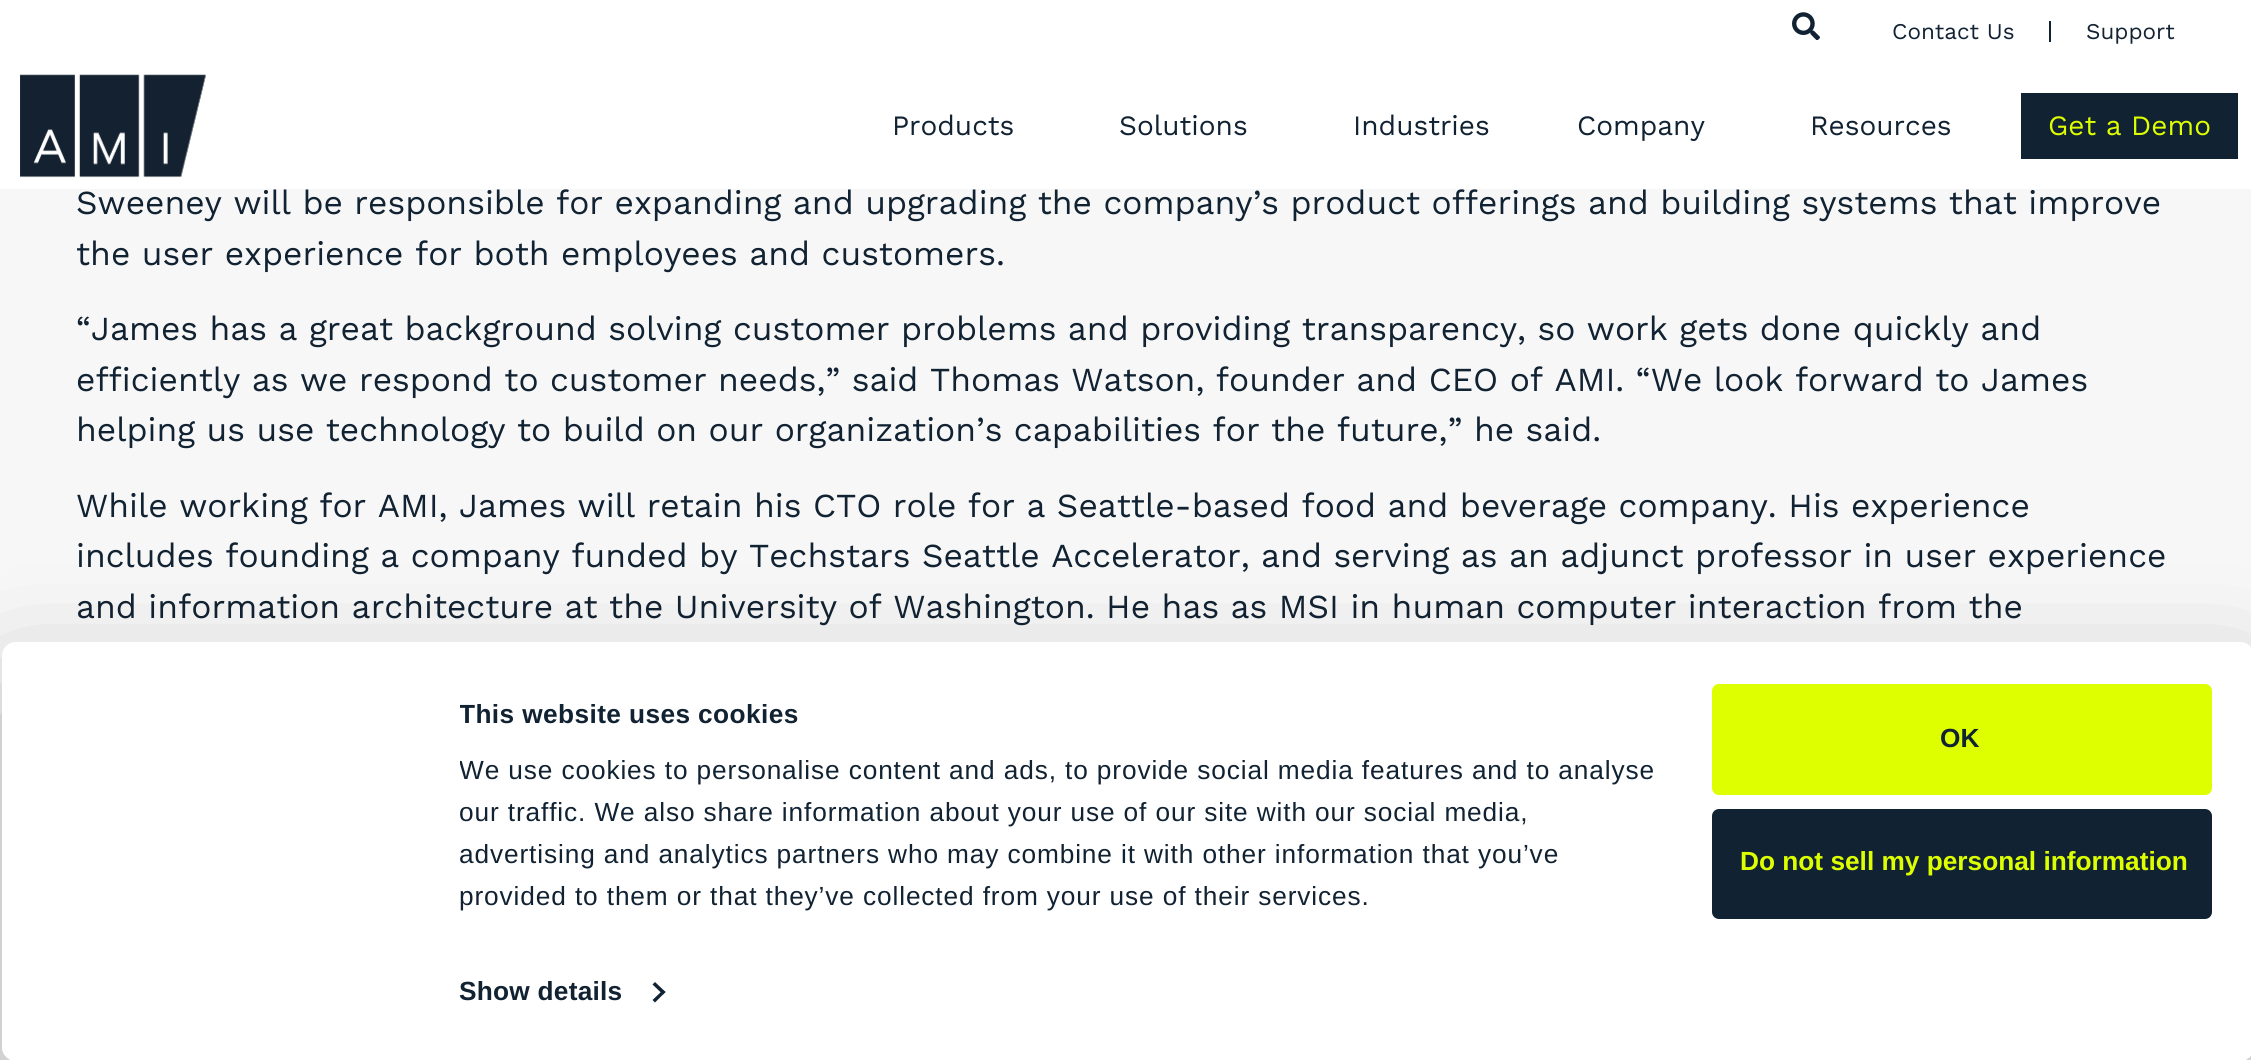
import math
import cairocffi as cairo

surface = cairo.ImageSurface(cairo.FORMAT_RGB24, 2251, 1060)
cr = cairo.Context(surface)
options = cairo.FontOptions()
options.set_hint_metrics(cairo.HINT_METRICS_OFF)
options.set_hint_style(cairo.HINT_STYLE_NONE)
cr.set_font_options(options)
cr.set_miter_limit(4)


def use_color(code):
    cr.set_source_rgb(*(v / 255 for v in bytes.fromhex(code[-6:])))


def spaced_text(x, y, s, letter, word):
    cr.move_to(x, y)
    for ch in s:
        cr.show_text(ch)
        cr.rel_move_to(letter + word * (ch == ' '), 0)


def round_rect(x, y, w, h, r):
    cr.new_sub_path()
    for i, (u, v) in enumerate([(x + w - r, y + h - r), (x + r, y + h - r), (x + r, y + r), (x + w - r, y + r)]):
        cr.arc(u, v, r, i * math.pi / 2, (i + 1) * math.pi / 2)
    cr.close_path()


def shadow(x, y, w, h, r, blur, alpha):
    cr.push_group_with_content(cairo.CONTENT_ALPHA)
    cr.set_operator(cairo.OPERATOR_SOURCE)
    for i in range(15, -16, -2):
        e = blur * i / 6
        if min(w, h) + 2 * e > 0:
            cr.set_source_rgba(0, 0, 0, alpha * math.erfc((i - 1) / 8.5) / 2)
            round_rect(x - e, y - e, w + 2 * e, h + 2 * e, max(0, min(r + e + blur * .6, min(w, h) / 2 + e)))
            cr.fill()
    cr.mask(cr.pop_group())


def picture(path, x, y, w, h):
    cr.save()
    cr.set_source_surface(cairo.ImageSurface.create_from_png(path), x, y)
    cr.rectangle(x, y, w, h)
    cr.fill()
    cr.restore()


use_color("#f7f7f7")
cr.paint()
use_color("#ffffff")
cr.rectangle(0, 0, 2251, 189)
cr.fill()
picture("img1.png", 1792, 12, 28, 28)
cr.select_font_face("Work Sans")
cr.set_font_size(22.5)
use_color("#112232")
cr.move_to(1892, 39)
cr.show_text("Contact Us")
cr.rectangle(2049, 21, 2, 21)
cr.fill()
cr.move_to(2086, 39)
cr.show_text("Support")
picture("img2.png", 20, 74, 186, 104)
cr.set_font_size(28)
cr.move_to(892, 135)
cr.show_text("Products")
cr.move_to(1119, 135)
cr.show_text("Solutions")
cr.move_to(1353, 135)
cr.show_text("Industries")
cr.move_to(1577, 135)
cr.show_text("Company")
cr.move_to(1810, 135)
cr.show_text("Resources")
cr.rectangle(2021, 93, 217, 66)
cr.fill()
use_color("#ddff00")
cr.move_to(2048, 135)
cr.show_text("Get a Demo")
cr.set_font_size(33.6)
use_color("#112232")
cr.move_to(76, 214)
cr.show_text("Sweeney will be responsible for expanding and upgrading the company’s product offerings and building systems that improve")
cr.move_to(76, 265)
cr.show_text("the user experience for both employees and customers.")
cr.move_to(76, 340)
cr.show_text("“James has a great background solving customer problems and providing transparency, so work gets done quickly and")
cr.move_to(76, 391)
cr.show_text("efficiently as we respond to customer needs,” said Thomas Watson, founder and CEO of AMI. “We look forward to James")
cr.move_to(76, 441)
cr.show_text("helping us use technology to build on our organization’s capabilities for the future,” he said.")
cr.move_to(76, 517)
cr.show_text("While working for AMI, James will retain his CTO role for a Seattle-based food and beverage company. His experience")
cr.move_to(76, 567)
cr.show_text("includes founding a company funded by Techstars Seattle Accelerator, and serving as an adjunct professor in user experience")
cr.move_to(76, 618)
cr.show_text("and information architecture at the University of Washington. He has as MSI in human computer interaction from the")
cr.save()
cr.set_fill_rule(cairo.FILL_RULE_EVEN_ODD)
cr.new_path()
cr.move_to(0, 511)
cr.line_to(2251, 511)
cr.line_to(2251, 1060)
cr.line_to(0, 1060)
cr.close_path()
cr.move_to(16, 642)
cr.line_to(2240, 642)
cr.curve_to(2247.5, 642, 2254, 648.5, 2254, 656)
cr.line_to(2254, 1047)
cr.curve_to(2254, 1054.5, 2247.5, 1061, 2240, 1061)
cr.line_to(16, 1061)
cr.curve_to(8.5, 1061, 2, 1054.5, 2, 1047)
cr.line_to(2, 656)
cr.curve_to(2, 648.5, 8.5, 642, 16, 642)
cr.close_path()
cr.clip()
use_color("#000000")
shadow(2, 695, 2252, 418, 14, 61, 0.3)
cr.restore()
use_color("#ffffff")
round_rect(2, 642, 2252, 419, 14)
cr.fill()
cr.save()
cr.rectangle(460, 695, 1241, 222)
cr.clip()
cr.select_font_face("Liberation Sans", cairo.FONT_SLANT_NORMAL, cairo.FONT_WEIGHT_BOLD)
cr.set_font_size(26.25)
use_color("#112232")
spaced_text(459, 723, "This website uses cookies", 0.4, 0)
cr.select_font_face("Liberation Sans")
spaced_text(459, 779, "We use cookies to personalise content and ads, to provide social media features and to analyse", 0.88, 0)
spaced_text(459, 821, "our traffic. We also share information about your use of our site with our social media,", 0.88, 0)
cr.restore()
cr.select_font_face("Liberation Sans")
cr.set_font_size(26.25)
use_color("#112232")
spaced_text(459, 863, "advertising and analytics partners who may combine it with other information that you’ve", 0.88, 0)
spaced_text(459, 905, "provided to them or that they’ve collected from your use of their services.", 0.88, 0)
cr.select_font_face("Liberation Sans", cairo.FONT_SLANT_NORMAL, cairo.FONT_WEIGHT_BOLD)
spaced_text(459, 1000, "Show details", 0.25, 0)
use_color("#112333")
cr.new_path()
cr.move_to(655, 982)
cr.line_to(665.5, 992)
cr.line_to(663, 994.5)
cr.line_to(652.5, 984.5)
cr.close_path()
cr.fill()
cr.new_path()
cr.move_to(663, 990)
cr.line_to(665.5, 992)
cr.line_to(655, 1002.5)
cr.line_to(652.5, 1000)
cr.close_path()
cr.fill()
use_color("#deff00")
round_rect(1714, 686, 496, 107, 5)
cr.fill_preserve()
cr.set_line_width(4)
cr.stroke()
use_color("#112232")
cr.move_to(1940, 747)
cr.show_text("OK")
use_color("#112333")
round_rect(1714, 811, 496, 106, 5)
cr.fill_preserve()
cr.stroke()
use_color("#ddff00")
cr.move_to(1740, 870)
cr.show_text("Do not sell my personal information")
surface.write_to_png("result.png")
